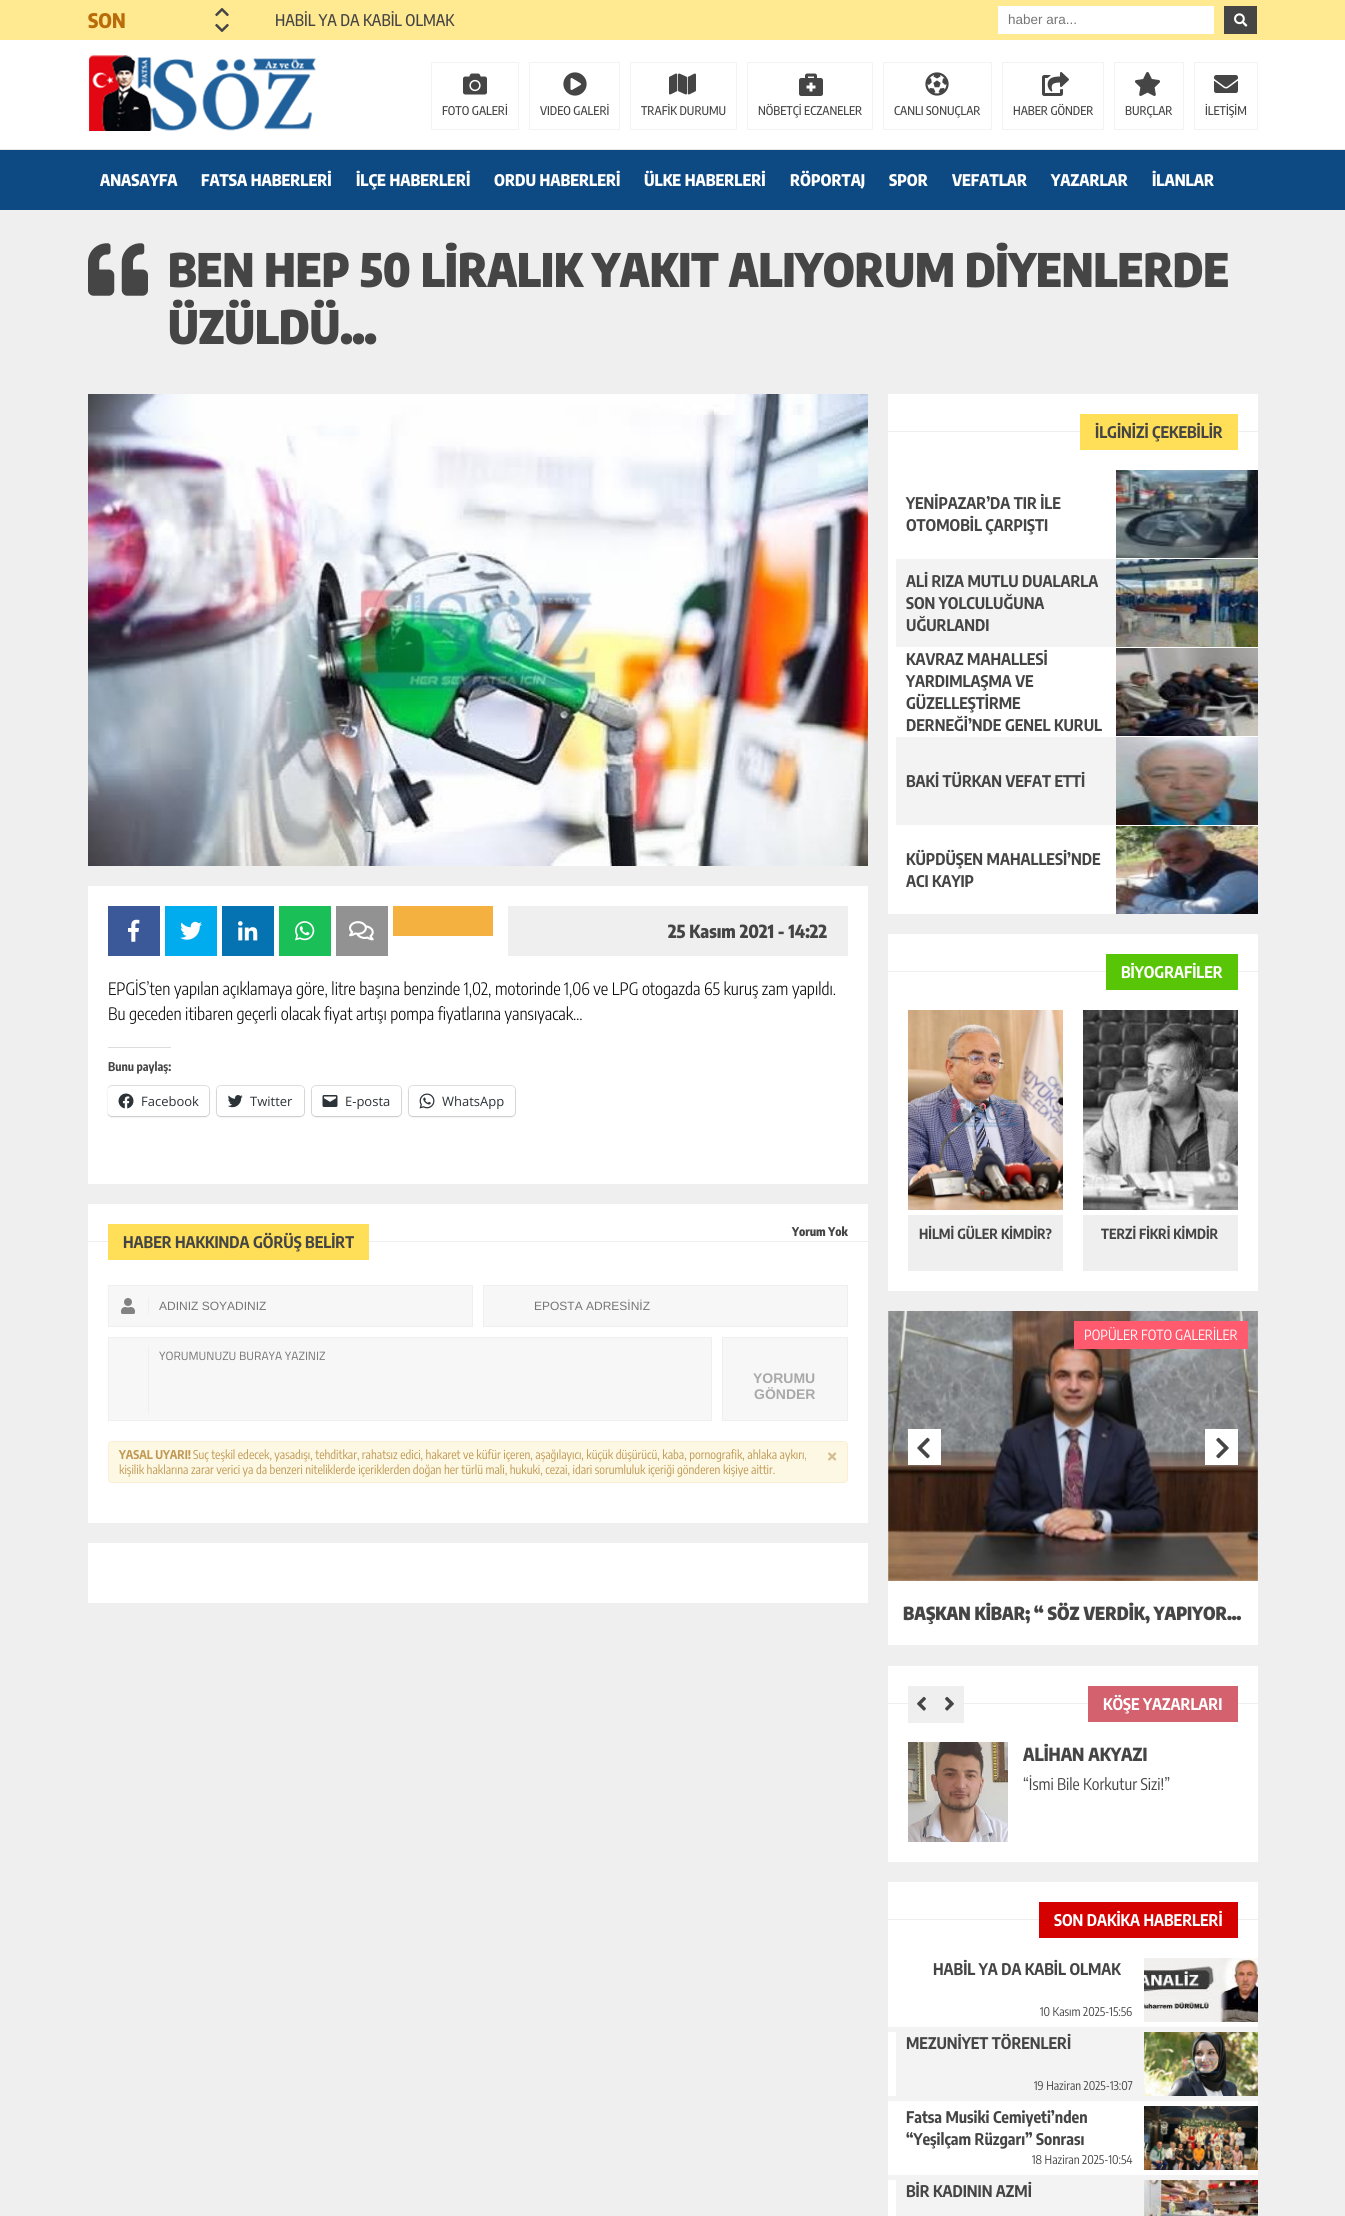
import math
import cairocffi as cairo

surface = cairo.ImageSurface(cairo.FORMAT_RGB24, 1345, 2216)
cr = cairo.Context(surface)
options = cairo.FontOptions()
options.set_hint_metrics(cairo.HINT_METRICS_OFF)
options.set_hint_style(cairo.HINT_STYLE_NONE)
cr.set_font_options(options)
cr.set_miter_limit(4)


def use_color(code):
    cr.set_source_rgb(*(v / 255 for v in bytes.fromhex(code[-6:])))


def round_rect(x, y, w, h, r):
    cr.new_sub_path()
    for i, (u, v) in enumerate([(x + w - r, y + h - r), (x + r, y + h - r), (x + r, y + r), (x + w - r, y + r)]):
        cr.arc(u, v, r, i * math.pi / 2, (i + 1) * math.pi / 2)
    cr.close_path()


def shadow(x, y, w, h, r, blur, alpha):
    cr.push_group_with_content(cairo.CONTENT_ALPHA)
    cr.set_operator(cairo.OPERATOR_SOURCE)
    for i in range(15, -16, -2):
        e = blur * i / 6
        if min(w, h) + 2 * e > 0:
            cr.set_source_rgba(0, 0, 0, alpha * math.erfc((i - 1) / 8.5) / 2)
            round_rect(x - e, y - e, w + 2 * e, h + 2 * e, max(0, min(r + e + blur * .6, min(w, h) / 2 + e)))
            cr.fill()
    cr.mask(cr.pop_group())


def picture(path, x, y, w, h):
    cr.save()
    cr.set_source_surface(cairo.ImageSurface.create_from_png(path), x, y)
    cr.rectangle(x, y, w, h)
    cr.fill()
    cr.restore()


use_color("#efefef")
cr.paint()
use_color("#ffe991")
cr.rectangle(0, 0, 1345, 40)
cr.fill()
cr.save()
cr.rectangle(88, 0, 110, 40)
cr.clip()
cr.select_font_face("Encode Sans Condensed ExtraBold")
cr.set_font_size(20)
use_color("#b96c09")
cr.move_to(88, 28)
cr.show_text("SON")
cr.restore()
picture("img1.png", 215, 7, 14, 10)
picture("img2.png", 215, 23, 14, 10)
cr.select_font_face("Encode Sans Condensed Medium")
cr.set_font_size(16)
use_color("#454545")
cr.move_to(275, 26)
cr.show_text("HABİL YA DA KABİL OLMAK")
use_color("#ffffff")
cr.rectangle(998, 6, 216, 28)
cr.fill()
cr.select_font_face("Liberation Sans")
cr.set_font_size(13.5)
use_color("#757575")
cr.move_to(1008, 24)
cr.show_text("haber ara...")
use_color("#454545")
cr.rectangle(1224, 6, 33, 28)
cr.fill()
picture("img3.png", 1234, 13, 14, 14)
use_color("#ffffff")
cr.rectangle(0, 40, 1345, 109)
cr.fill()
use_color("#e6e6e6")
cr.rectangle(0, 149, 1345, 1)
cr.fill()
picture("img4.png", 89, 55, 227, 76)
picture("img5.png", 463, 73, 24, 22)
cr.rectangle(431.5, 62.5, 87, 67)
use_color("#f3f3f3")
cr.set_line_width(1)
cr.stroke()
cr.select_font_face("Encode Sans Condensed Medium")
cr.set_font_size(12)
use_color("#454545")
cr.move_to(442, 115)
cr.show_text("FOTO GALERİ")
picture("img6.png", 563, 72, 24, 24)
cr.rectangle(529.5, 62.5, 90, 67)
use_color("#f3f3f3")
cr.stroke()
use_color("#454545")
cr.move_to(540, 115)
cr.show_text("VIDEO GALERİ")
picture("img7.png", 669, 73, 27, 22)
cr.rectangle(630.5, 62.5, 106, 67)
use_color("#f3f3f3")
cr.stroke()
use_color("#454545")
cr.move_to(641, 115)
cr.show_text("TRAFİK DURUMU")
picture("img8.png", 799, 73, 24, 23)
cr.rectangle(747.5, 62.5, 125, 67)
use_color("#f3f3f3")
cr.stroke()
use_color("#454545")
cr.move_to(758, 115)
cr.show_text("NÖBETÇİ ECZANELER")
picture("img9.png", 925, 72, 24, 24)
cr.rectangle(883.5, 62.5, 108, 67)
use_color("#f3f3f3")
cr.stroke()
use_color("#454545")
cr.move_to(894, 115)
cr.show_text("CANLI SONUÇLAR")
picture("img10.png", 1042, 72, 27, 24)
cr.rectangle(1002.5, 62.5, 101, 67)
use_color("#f3f3f3")
cr.stroke()
use_color("#454545")
cr.move_to(1013, 115)
cr.show_text("HABER GÖNDER")
picture("img11.png", 1135, 72, 25, 24)
cr.rectangle(1114.5, 62.5, 69, 67)
use_color("#f3f3f3")
cr.stroke()
use_color("#454545")
cr.move_to(1125, 115)
cr.show_text("BURÇLAR")
picture("img12.png", 1214, 75, 24, 18)
cr.rectangle(1194.5, 62.5, 63, 67)
use_color("#f3f3f3")
cr.stroke()
use_color("#454545")
cr.move_to(1205, 115)
cr.show_text("İLETİŞİM")
use_color("#0d4982")
cr.rectangle(0, 150, 1345, 60)
cr.fill()
cr.select_font_face("Encode Sans Condensed ExtraBold")
cr.set_font_size(16)
use_color("#ffffff")
cr.move_to(100, 186)
cr.show_text("ANASAYFA")
cr.move_to(201, 186)
cr.show_text("FATSA HABERLERİ")
cr.move_to(356, 186)
cr.show_text("İLÇE HABERLERİ")
cr.move_to(494, 186)
cr.show_text("ORDU HABERLERİ")
cr.move_to(644, 186)
cr.show_text("ÜLKE HABERLERİ")
cr.move_to(790, 186)
cr.show_text("RÖPORTAJ")
cr.move_to(889, 186)
cr.show_text("SPOR")
cr.move_to(952, 186)
cr.show_text("VEFATLAR")
cr.move_to(1051, 186)
cr.show_text("YAZARLAR")
cr.move_to(1152, 186)
cr.show_text("İLANLAR")
picture("img13.png", 88, 243, 60, 53)
cr.select_font_face("Encode Sans Condensed Black")
cr.set_font_size(46)
use_color("#454545")
cr.move_to(168, 287)
cr.show_text("BEN HEP 50 LİRALIK YAKIT ALIYORUM DİYENLERDE")
cr.move_to(168, 344)
cr.show_text("ÜZÜLDÜ…")
picture("img14.png", 88, 394, 780, 472)
use_color("#ffffff")
cr.rectangle(88, 886, 780, 298)
cr.fill()
use_color("#3b5998")
cr.rectangle(108, 906, 52, 50)
cr.fill()
picture("img15.png", 128, 919, 12, 23)
use_color("#00aced")
cr.rectangle(165, 906, 52, 50)
cr.fill()
picture("img16.png", 180, 921, 22, 19)
use_color("#0573b1")
cr.rectangle(222, 906, 52, 50)
cr.fill()
picture("img17.png", 238, 921, 20, 20)
use_color("#1bbf58")
cr.rectangle(279, 906, 52, 50)
cr.fill()
picture("img18.png", 295, 921, 20, 20)
use_color("#929292")
cr.rectangle(336, 906, 52, 50)
cr.fill()
picture("img19.png", 349, 921, 25, 20)
use_color("#f4b140")
cr.rectangle(393, 906, 100, 30)
cr.fill()
use_color("#efefef")
cr.rectangle(508, 906, 340, 50)
cr.fill()
cr.select_font_face("Encode Sans Condensed ExtraBold")
cr.set_font_size(18)
use_color("#454545")
cr.move_to(668, 938)
cr.show_text("25 Kasım 2021 - 14:22")
cr.select_font_face("Encode Sans Condensed Light")
cr.set_font_size(17)
use_color("#000000")
cr.move_to(108, 995)
cr.show_text("EPGİS’ten yapılan açıklamaya göre, litre başına benzinde 1,02, motorinde 1,06 ve LPG otogazda 65 kuruş zam yapıldı.")
cr.move_to(108, 1020)
cr.show_text("Bu geceden itibaren geçerli olacak fiyat artışı pompa fiyatlarına yansıyacak…")
use_color("#dcdcde")
cr.rectangle(108, 1047, 63, 1)
cr.fill()
cr.select_font_face("Encode Sans Condensed", cairo.FONT_SLANT_NORMAL, cairo.FONT_WEIGHT_BOLD)
cr.set_font_size(12)
use_color("#454545")
cr.move_to(108, 1071)
cr.show_text("Bunu paylaş:")
cr.save()
cr.rectangle(108, 976, 740, 168)
cr.clip()
round_rect(107.5, 1085.5, 102, 31, 4.5)
use_color("#e0e0e0")
cr.stroke()
cr.restore()
use_color("#000000")
shadow(108, 1087, 101, 30, 4, 1, 0.12)
use_color("#ffffff")
round_rect(108, 1086, 101, 30, 4)
cr.fill()
picture("img20.png", 118, 1093, 16, 16)
cr.select_font_face("Open Sans")
cr.set_font_size(13)
use_color("#2c3338")
cr.move_to(141, 1106)
cr.show_text("Facebook")
round_rect(216.5, 1085.5, 88, 31, 4.5)
use_color("#e0e0e0")
cr.stroke()
use_color("#000000")
shadow(217, 1087, 87, 30, 4, 1, 0.12)
use_color("#ffffff")
round_rect(217, 1086, 87, 30, 4)
cr.fill()
picture("img21.png", 227, 1095, 16, 13)
use_color("#2c3338")
cr.move_to(250, 1106)
cr.show_text("Twitter")
round_rect(311.5, 1085.5, 90, 31, 4.5)
use_color("#e0e0e0")
cr.stroke()
use_color("#000000")
shadow(312, 1087, 89, 30, 4, 1, 0.12)
use_color("#ffffff")
round_rect(312, 1086, 89, 30, 4)
cr.fill()
picture("img22.png", 322, 1095, 16, 12)
use_color("#2c3338")
cr.move_to(345, 1106)
cr.show_text("E-posta")
round_rect(408.5, 1085.5, 107, 31, 4.5)
use_color("#e0e0e0")
cr.stroke()
use_color("#000000")
shadow(409, 1087, 106, 30, 4, 1, 0.12)
use_color("#ffffff")
round_rect(409, 1086, 106, 30, 4)
cr.fill()
picture("img23.png", 419, 1093, 16, 16)
use_color("#2c3338")
cr.move_to(442, 1106)
cr.show_text("WhatsApp")
use_color("#ffffff")
cr.rectangle(88, 1204, 780, 319)
cr.fill()
use_color("#efefef")
cr.rectangle(88, 1241, 780, 1)
cr.fill()
use_color("#ffde58")
cr.rectangle(108, 1224, 261, 36)
cr.fill()
cr.select_font_face("Encode Sans Condensed", cairo.FONT_SLANT_NORMAL, cairo.FONT_WEIGHT_BOLD)
cr.set_font_size(16)
use_color("#454545")
cr.move_to(123, 1248)
cr.show_text("HABER HAKKINDA GÖRÜŞ BELİRT")
cr.select_font_face("Encode Sans Condensed ExtraBold")
cr.set_font_size(12)
cr.move_to(792, 1236)
cr.show_text("Yorum Yok")
use_color("#f7f7f7")
cr.rectangle(108.5, 1285.5, 364, 41)
cr.fill_preserve()
use_color("#efefef")
cr.stroke()
cr.rectangle(148, 1298, 1, 16)
cr.fill()
picture("img24.png", 121, 1298, 14, 16)
cr.select_font_face("Liberation Sans")
use_color("#757575")
cr.move_to(159, 1310)
cr.show_text("ADINIZ SOYADINIZ")
use_color("#f7f7f7")
cr.rectangle(483.5, 1285.5, 364, 41)
cr.fill_preserve()
use_color("#efefef")
cr.stroke()
use_color("#757575")
cr.move_to(534, 1310)
cr.show_text("EPOSTA ADRESİNİZ")
use_color("#f7f7f7")
cr.rectangle(108.5, 1337.5, 603, 83)
cr.fill_preserve()
use_color("#efefef")
cr.stroke()
cr.rectangle(148, 1347, 1, 66)
cr.fill()
cr.select_font_face("Titillium Web")
use_color("#757575")
cr.move_to(159, 1360)
cr.show_text("YORUMUNUZU BURAYA YAZINIZ")
use_color("#f7f7f7")
cr.rectangle(722.5, 1337.5, 125, 83)
cr.fill_preserve()
use_color("#efefef")
cr.stroke()
cr.select_font_face("Liberation Sans", cairo.FONT_SLANT_NORMAL, cairo.FONT_WEIGHT_BOLD)
cr.set_font_size(14)
use_color("#a9a9a9")
cr.move_to(753, 1383)
cr.show_text("YORUMU")
cr.move_to(754, 1399)
cr.show_text("GÖNDER")
use_color("#fcf8e3")
round_rect(108.5, 1441.5, 739, 41, 3.5)
cr.fill_preserve()
use_color("#fbeed5")
cr.stroke()
cr.select_font_face("Encode Sans Condensed", cairo.FONT_SLANT_NORMAL, cairo.FONT_WEIGHT_BOLD)
cr.set_font_size(12)
use_color("#c09853")
cr.move_to(119, 1459)
cr.show_text("YASAL UYARI!")
cr.select_font_face("Encode Sans Condensed")
cr.move_to(193, 1459)
cr.show_text("Suç teşkil edecek, yasadışı, tehditkar, rahatsız edici, hakaret ve küfür içeren, aşağılayıcı, küçük düşürücü, kaba, pornografik, ahlaka aykırı,")
picture("img25.png", 828, 1452, 9, 9)
cr.move_to(119, 1474)
cr.show_text("kişilik haklarına zarar verici ya da benzeri niteliklerde içeriklerden doğan her türlü mali, hukuki, cezai, idari sorumluluk içeriği gönderen kişiye aittir.")
use_color("#ffffff")
cr.rectangle(88, 1543, 780, 60)
cr.fill()
cr.rectangle(888, 394, 370, 520)
cr.fill()
use_color("#efefef")
cr.rectangle(888, 431, 370, 1)
cr.fill()
use_color("#ffde58")
cr.rectangle(1080, 414, 158, 36)
cr.fill()
cr.select_font_face("Encode Sans Condensed", cairo.FONT_SLANT_NORMAL, cairo.FONT_WEIGHT_BOLD)
cr.set_font_size(16)
use_color("#454545")
cr.move_to(1095, 438)
cr.show_text("İLGİNİZİ ÇEKEBİLİR")
cr.move_to(906, 509)
cr.show_text("YENİPAZAR’DA TIR İLE")
cr.move_to(906, 531)
cr.show_text("OTOMOBİL ÇARPIŞTI")
picture("img26.png", 1116, 470, 142, 88)
use_color("#f3f3f3")
cr.rectangle(896, 559, 220, 88)
cr.fill()
use_color("#454545")
cr.move_to(906, 587)
cr.show_text("ALİ RIZA MUTLU DUALARLA")
cr.move_to(906, 609)
cr.show_text("SON YOLCULUĞUNA")
cr.move_to(906, 631)
cr.show_text("UĞURLANDI")
picture("img27.png", 1116, 559, 142, 88)
cr.move_to(906, 665)
cr.show_text("KAVRAZ MAHALLESİ")
cr.move_to(906, 687)
cr.show_text("YARDIMLAŞMA VE")
cr.move_to(906, 709)
cr.show_text("GÜZELLEŞTİRME")
cr.move_to(906, 731)
cr.show_text("DERNEĞİ’NDE GENEL KURUL")
picture("img28.png", 1116, 648, 142, 88)
use_color("#f3f3f3")
cr.rectangle(896, 737, 220, 88)
cr.fill()
use_color("#454545")
cr.move_to(906, 787)
cr.show_text("BAKİ TÜRKAN VEFAT ETTİ")
picture("img29.png", 1116, 737, 142, 88)
cr.move_to(906, 865)
cr.show_text("KÜPDÜŞEN MAHALLESİ’NDE")
cr.move_to(906, 887)
cr.show_text("ACI KAYIP")
picture("img30.png", 1116, 826, 142, 88)
use_color("#ffffff")
cr.rectangle(888, 934, 370, 357)
cr.fill()
use_color("#efefef")
cr.rectangle(888, 971, 370, 1)
cr.fill()
use_color("#58c507")
cr.rectangle(1106, 954, 132, 36)
cr.fill()
use_color("#ffffff")
cr.move_to(1121, 978)
cr.show_text("BİYOGRAFİLER")
picture("img31.png", 908, 1010, 155, 200)
use_color("#efefef")
cr.rectangle(908, 1215, 155, 56)
cr.fill()
cr.set_font_size(14)
use_color("#454545")
cr.move_to(919, 1239)
cr.show_text("HİLMİ GÜLER KİMDİR?")
picture("img32.png", 1083, 1010, 155, 200)
use_color("#efefef")
cr.rectangle(1083, 1215, 155, 56)
cr.fill()
use_color("#454545")
cr.move_to(1101, 1239)
cr.show_text("TERZİ FİKRİ KİMDİR")
picture("img35.png", 888, 1311, 370, 270)
use_color("#ff5a6e")
cr.rectangle(1074, 1321, 174, 28)
cr.fill()
cr.select_font_face("Encode Sans Condensed")
use_color("#ffffff")
cr.move_to(1084, 1340)
cr.show_text("POPÜLER FOTO GALERİLER")
cr.rectangle(908, 1429, 33, 36)
cr.fill()
picture("img33.png", 917, 1437, 13, 22)
cr.rectangle(1205, 1429, 33, 36)
cr.fill()
picture("img34.png", 1216, 1437, 13, 22)
cr.rectangle(888, 1581, 370, 64)
cr.fill()
cr.select_font_face("Encode Sans Condensed Black")
cr.set_font_size(18)
use_color("#454545")
cr.move_to(903, 1620)
cr.show_text("BAŞKAN KİBAR; “ SÖZ VERDİK, YAPIYOR…")
use_color("#ffffff")
cr.rectangle(888, 1666, 370, 196)
cr.fill()
use_color("#efefef")
cr.rectangle(888, 1703, 370, 1)
cr.fill()
cr.rectangle(908, 1686, 56, 37)
cr.fill()
picture("img36.png", 917, 1696, 9, 15)
picture("img37.png", 945, 1696, 9, 15)
use_color("#d4616e")
cr.rectangle(1088, 1686, 150, 36)
cr.fill()
cr.select_font_face("Encode Sans Condensed", cairo.FONT_SLANT_NORMAL, cairo.FONT_WEIGHT_BOLD)
cr.set_font_size(16)
use_color("#ffffff")
cr.move_to(1103, 1710)
cr.show_text("KÖŞE YAZARLARI")
picture("img38.png", 908, 1742, 100, 100)
cr.select_font_face("Encode Sans Condensed ExtraBold")
cr.set_font_size(18)
use_color("#454545")
cr.move_to(1023, 1761)
cr.show_text("ALİHAN AKYAZI")
cr.select_font_face("Encode Sans Condensed")
cr.set_font_size(16)
cr.move_to(1023, 1790)
cr.show_text("“İsmi Bile Korkutur Sizi!”")
use_color("#ffffff")
cr.rectangle(888, 1882, 370, 293)
cr.fill()
use_color("#efefef")
cr.rectangle(888, 1919, 370, 1)
cr.fill()
use_color("#d50000")
cr.rectangle(1039, 1902, 199, 36)
cr.fill()
cr.select_font_face("Encode Sans Condensed", cairo.FONT_SLANT_NORMAL, cairo.FONT_WEIGHT_BOLD)
use_color("#ffffff")
cr.move_to(1054, 1926)
cr.show_text("SON DAKİKA HABERLERİ")
use_color("#454545")
cr.move_to(933, 1975)
cr.show_text("HABİL YA DA KABİL OLMAK")
picture("img39.png", 1144, 1958, 114, 64)
cr.select_font_face("Encode Sans Condensed")
cr.set_font_size(12)
cr.move_to(1040, 2016)
cr.show_text("10 Kasım 2025-15:56")
use_color("#f3f3f3")
cr.rectangle(888, 2027, 370, 74)
cr.fill()
use_color("#ffffff")
cr.rectangle(888, 2032, 8, 64)
cr.fill()
cr.select_font_face("Encode Sans Condensed", cairo.FONT_SLANT_NORMAL, cairo.FONT_WEIGHT_BOLD)
cr.set_font_size(16)
use_color("#454545")
cr.move_to(906, 2049)
cr.show_text("MEZUNİYET TÖRENLERİ")
picture("img40.png", 1144, 2032, 114, 64)
cr.select_font_face("Encode Sans Condensed")
cr.set_font_size(12)
cr.move_to(1034, 2090)
cr.show_text("19 Haziran 2025-13:07")
cr.select_font_face("Encode Sans Condensed", cairo.FONT_SLANT_NORMAL, cairo.FONT_WEIGHT_BOLD)
cr.set_font_size(16)
cr.move_to(906, 2123)
cr.show_text("Fatsa Musiki Cemiyeti’nden")
cr.move_to(906, 2145)
cr.show_text("“Yeşilçam Rüzgarı” Sonrası")
picture("img41.png", 1144, 2106, 114, 64)
cr.select_font_face("Encode Sans Condensed")
cr.set_font_size(12)
cr.move_to(1032, 2164)
cr.show_text("18 Haziran 2025-10:54")
use_color("#f3f3f3")
cr.rectangle(888, 2175, 370, 41)
cr.fill()
use_color("#ffffff")
cr.rectangle(888, 2180, 8, 36)
cr.fill()
cr.select_font_face("Encode Sans Condensed", cairo.FONT_SLANT_NORMAL, cairo.FONT_WEIGHT_BOLD)
cr.set_font_size(16)
use_color("#454545")
cr.move_to(906, 2197)
cr.show_text("BİR KADININ AZMİ")
picture("img42.png", 1144, 2180, 114, 36)
surface.write_to_png("result.png")
